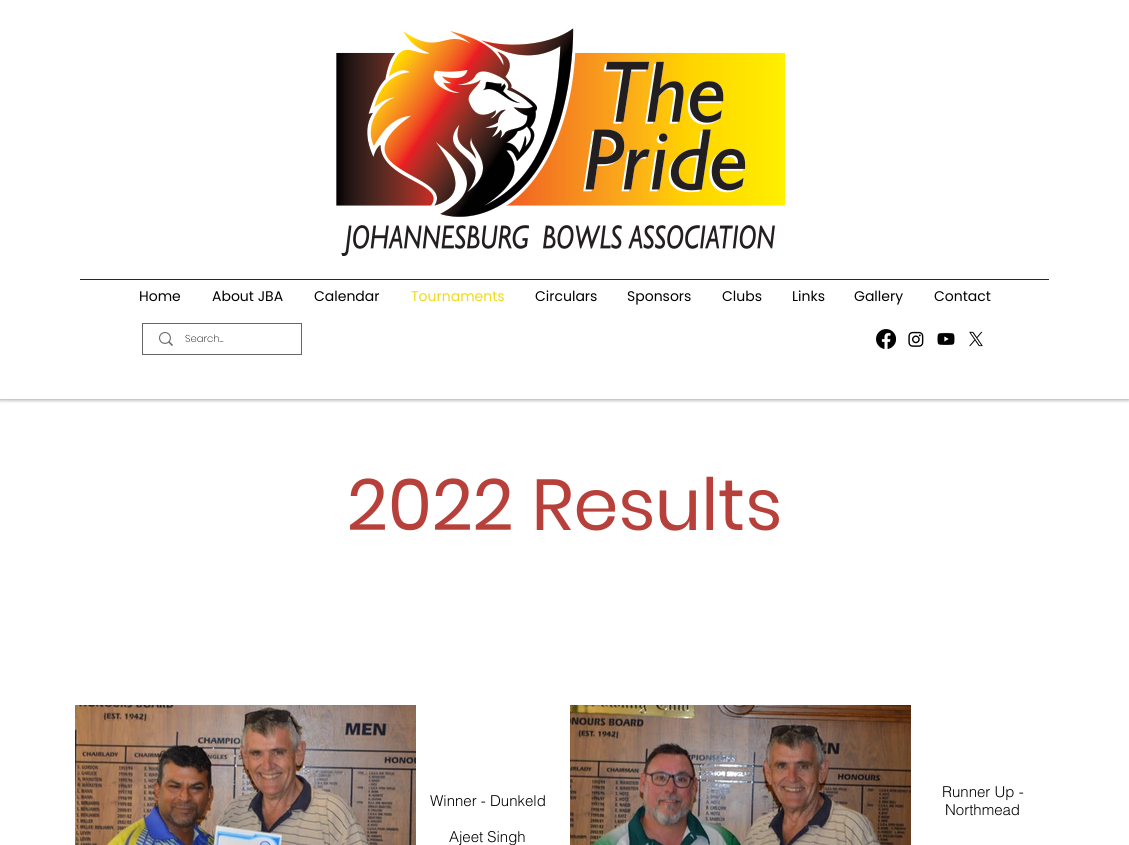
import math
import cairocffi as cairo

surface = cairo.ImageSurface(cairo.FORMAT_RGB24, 1129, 845)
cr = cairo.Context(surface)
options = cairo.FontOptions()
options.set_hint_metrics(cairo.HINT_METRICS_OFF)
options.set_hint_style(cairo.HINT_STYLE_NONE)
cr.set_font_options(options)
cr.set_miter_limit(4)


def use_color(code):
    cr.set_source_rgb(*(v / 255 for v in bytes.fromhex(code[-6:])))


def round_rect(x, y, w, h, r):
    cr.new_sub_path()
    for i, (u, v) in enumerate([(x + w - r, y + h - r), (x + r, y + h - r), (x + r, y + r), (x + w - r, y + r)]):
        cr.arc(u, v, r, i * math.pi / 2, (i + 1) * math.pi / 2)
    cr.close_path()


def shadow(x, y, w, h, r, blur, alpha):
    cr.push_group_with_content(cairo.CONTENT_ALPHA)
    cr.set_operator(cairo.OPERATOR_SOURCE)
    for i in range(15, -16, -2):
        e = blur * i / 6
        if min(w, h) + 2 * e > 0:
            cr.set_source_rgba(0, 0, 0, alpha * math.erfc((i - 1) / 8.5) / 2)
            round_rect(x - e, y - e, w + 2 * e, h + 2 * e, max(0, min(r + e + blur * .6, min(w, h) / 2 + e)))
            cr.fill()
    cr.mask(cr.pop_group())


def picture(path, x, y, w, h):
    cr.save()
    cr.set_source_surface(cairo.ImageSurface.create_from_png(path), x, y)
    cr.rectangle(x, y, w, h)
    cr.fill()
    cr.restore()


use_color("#ffffff")
cr.paint()
cr.save()
cr.rectangle(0, 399, 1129, 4)
cr.clip()
use_color("#000000")
shadow(0, 0, 1129, 399, 0, 2.5, 0.5)
cr.restore()
picture("img1.png", 336, 28, 450, 228)
use_color("#262626")
cr.rectangle(80, 279, 969, 1)
cr.fill()
cr.select_font_face("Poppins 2")
cr.set_font_size(14)
use_color("#000000")
cr.move_to(139, 301)
cr.show_text("Home")
cr.move_to(212, 301)
cr.show_text("About JBA")
cr.move_to(314, 301)
cr.show_text("Calendar")
use_color("#eeda17")
cr.move_to(411, 301)
cr.show_text("Tournaments")
use_color("#000000")
cr.move_to(535, 301)
cr.show_text("Circulars")
cr.move_to(627, 301)
cr.show_text("Sponsors")
cr.move_to(722, 301)
cr.show_text("Clubs")
cr.move_to(792, 301)
cr.show_text("Links")
cr.move_to(854, 301)
cr.show_text("Gallery")
cr.move_to(934, 301)
cr.show_text("Contact")
cr.rectangle(142.5, 323.5, 159, 31)
use_color("#666666")
cr.set_line_width(1)
cr.stroke()
picture("img2.png", 159, 332, 14, 14)
cr.select_font_face("Poppins ExtraLight")
cr.set_font_size(10)
use_color("#000000")
cr.move_to(185, 342)
cr.show_text("Search...")
picture("img3.png", 876, 329, 20, 20)
picture("img4.png", 908, 331, 16, 16)
picture("img5.png", 937, 332, 18, 13)
picture("img6.png", 969, 331, 14, 16)
cr.select_font_face("Poppins")
cr.set_font_size(72)
use_color("#b7413a")
cr.move_to(347, 530)
cr.show_text("2022 Results")
picture("img7.png", 75, 705, 341, 140)
cr.select_font_face("helvetica Light")
cr.set_font_size(15)
use_color("#000000")
cr.move_to(430, 806)
cr.show_text("Winner - Dunkeld")
cr.move_to(449, 842)
cr.show_text("Ajeet Singh")
picture("img8.png", 570, 705, 341, 140)
cr.move_to(942, 797)
cr.show_text("Runner Up -")
cr.move_to(945, 815)
cr.show_text("Northmead")
surface.write_to_png("result.png")
